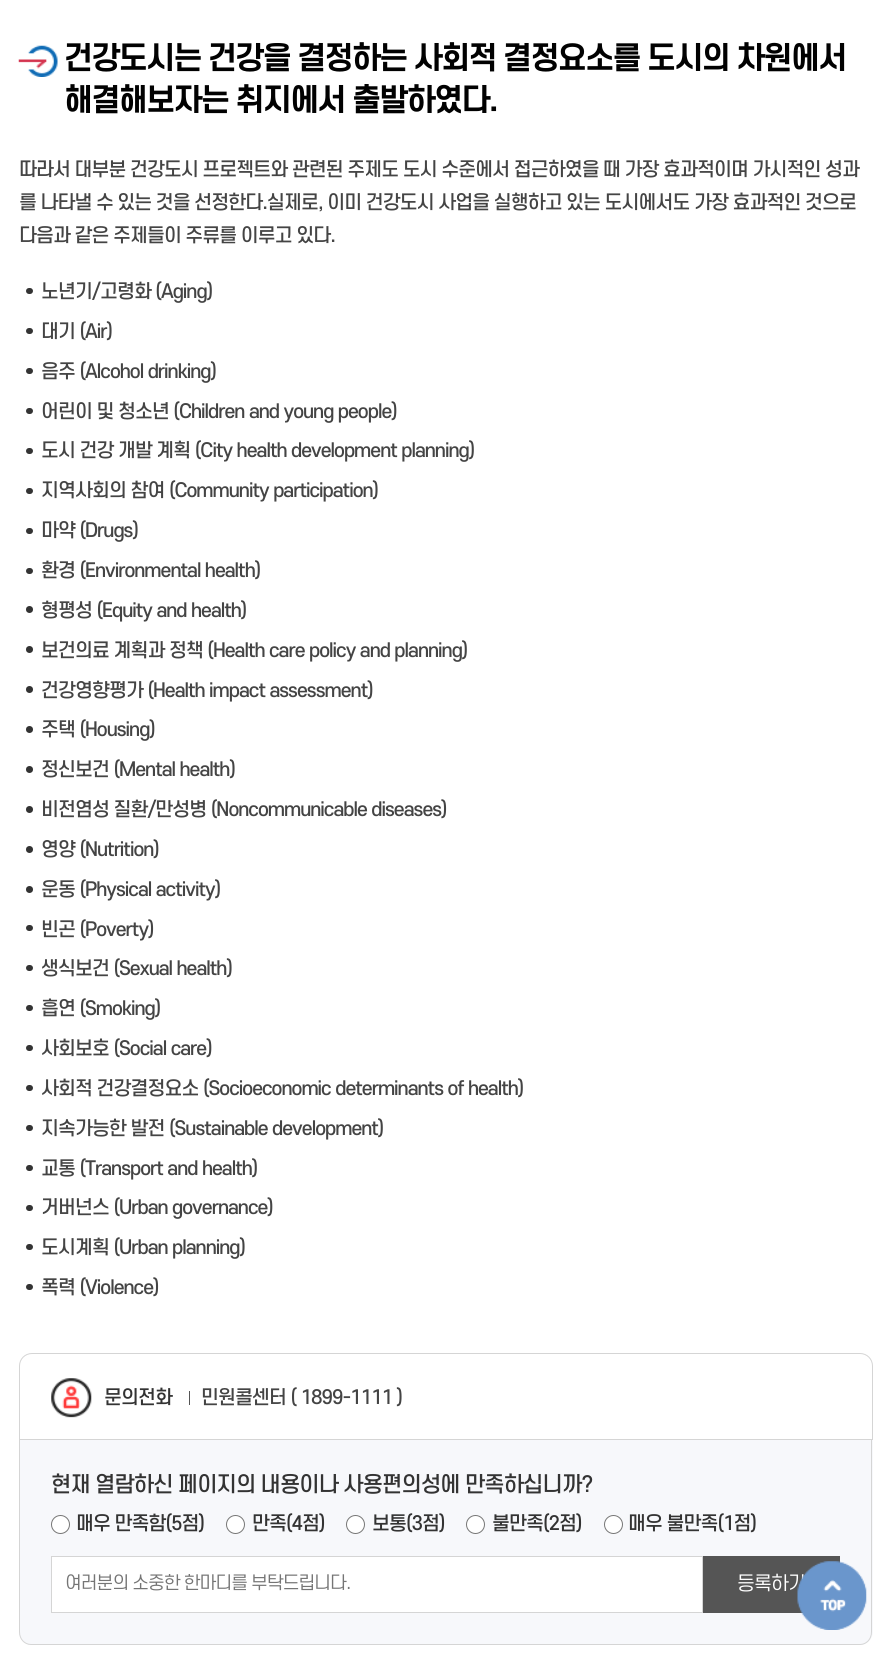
import math
import cairocffi as cairo

surface = cairo.ImageSurface(cairo.FORMAT_RGB24, 891, 1654)
cr = cairo.Context(surface)
options = cairo.FontOptions()
options.set_hint_metrics(cairo.HINT_METRICS_OFF)
options.set_hint_style(cairo.HINT_STYLE_NONE)
cr.set_font_options(options)
cr.set_miter_limit(4)


def use_color(code):
    cr.set_source_rgb(*(v / 255 for v in bytes.fromhex(code[-6:])))


def spaced_text(x, y, s, letter, word):
    cr.move_to(x, y)
    for ch in s:
        cr.show_text(ch)
        cr.rel_move_to(letter + word * (ch == ' '), 0)


def round_rect(x, y, w, h, r):
    cr.new_sub_path()
    for i, (u, v) in enumerate([(x + w - r, y + h - r), (x + r, y + h - r), (x + r, y + r), (x + w - r, y + r)]):
        cr.arc(u, v, r, i * math.pi / 2, (i + 1) * math.pi / 2)
    cr.close_path()


def picture(path, x, y, w, h):
    cr.save()
    cr.set_source_surface(cairo.ImageSurface.create_from_png(path), x, y)
    cr.rectangle(x, y, w, h)
    cr.fill()
    cr.restore()


use_color("#ffffff")
cr.paint()
picture("img1.png", 18, 45, 40, 32)
cr.select_font_face("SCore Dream", cairo.FONT_SLANT_NORMAL, cairo.FONT_WEIGHT_BOLD)
cr.set_font_size(30.5)
use_color("#010101")
spaced_text(64, 69, "건강도시는 건강을 결정하는 사회적 결정요소를 도시의 차원에서", -1.9, 0)
spaced_text(64, 111, "해결해보자는 취지에서 출발하였다.", -1.9, 0)
cr.select_font_face("SCore Dream Medium")
cr.set_font_size(18.75)
use_color("#444444")
spaced_text(19, 176, "따라서 대부분 건강도시 프로젝트와 관련된 주제도 도시 수준에서 접근하였을 때 가장 효과적이며 가시적인 성과", -1, 0)
spaced_text(19, 209, "를 나타낼 수 있는 것을 선정한다.실제로, 이미 건강도시 사업을 실행하고 있는 도시에서도 가장 효과적인 것으로", -1, 0)
spaced_text(19, 242, "다음과 같은 주제들이 주류를 이루고 있다.", -1, 0)
use_color("#333333")
round_rect(26, 288, 7, 6, 3)
cr.fill()
use_color("#444444")
spaced_text(41, 298, "노년기/고령화 (Aging)", -1, 0)
use_color("#333333")
round_rect(26, 328, 7, 6, 3)
cr.fill()
use_color("#444444")
spaced_text(41, 338, "대기 (Air)", -1, 0)
use_color("#333333")
round_rect(26, 368, 7, 6, 3)
cr.fill()
use_color("#444444")
spaced_text(41, 378, "음주 (Alcohol drinking)", -1, 0)
use_color("#333333")
round_rect(26, 408, 7, 6, 3)
cr.fill()
use_color("#444444")
spaced_text(41, 418, "어린이 및 청소년 (Children and young people)", -1, 0)
use_color("#333333")
round_rect(26, 448, 7, 6, 3)
cr.fill()
use_color("#444444")
spaced_text(41, 457, "도시 건강 개발 계획 (City health development planning)", -1, 0)
use_color("#333333")
round_rect(26, 488, 7, 6, 3)
cr.fill()
use_color("#444444")
spaced_text(41, 497, "지역사회의 참여 (Community participation)", -1, 0)
use_color("#333333")
round_rect(26, 528, 7, 6, 3)
cr.fill()
use_color("#444444")
spaced_text(41, 537, "마약 (Drugs)", -1, 0)
use_color("#333333")
round_rect(26, 568, 7, 6, 3)
cr.fill()
use_color("#444444")
spaced_text(41, 577, "환경 (Environmental health)", -1, 0)
use_color("#333333")
cr.new_path()
cr.arc(29.5, 609.5, 3.5, 0, 2 * math.pi)
cr.fill()
use_color("#444444")
spaced_text(41, 617, "형평성 (Equity and health)", -1, 0)
use_color("#333333")
cr.new_path()
cr.arc(29.5, 649.5, 3.5, 0, 2 * math.pi)
cr.fill()
use_color("#444444")
spaced_text(41, 657, "보건의료 계획과 정책 (Health care policy and planning)", -1, 0)
use_color("#333333")
cr.new_path()
cr.arc(29.5, 689.5, 3.5, 0, 2 * math.pi)
cr.fill()
use_color("#444444")
spaced_text(41, 697, "건강영향평가 (Health impact assessment)", -1, 0)
use_color("#333333")
cr.new_path()
cr.arc(29.5, 729.5, 3.5, 0, 2 * math.pi)
cr.fill()
use_color("#444444")
spaced_text(41, 736, "주택 (Housing)", -1, 0)
use_color("#333333")
cr.new_path()
cr.arc(29.5, 769.5, 3.5, 0, 2 * math.pi)
cr.fill()
use_color("#444444")
spaced_text(41, 776, "정신보건 (Mental health)", -1, 0)
use_color("#333333")
cr.new_path()
cr.arc(29.5, 809.5, 3.5, 0, 2 * math.pi)
cr.fill()
use_color("#444444")
spaced_text(41, 816, "비전염성 질환/만성병 (Noncommunicable diseases)", -1, 0)
use_color("#333333")
cr.new_path()
cr.arc(29.5, 849.5, 3.5, 0, 2 * math.pi)
cr.fill()
use_color("#444444")
spaced_text(41, 856, "영양 (Nutrition)", -1, 0)
use_color("#333333")
cr.new_path()
cr.arc(29.5, 889.5, 3.5, 0, 2 * math.pi)
cr.fill()
use_color("#444444")
spaced_text(41, 896, "운동 (Physical activity)", -1, 0)
use_color("#333333")
round_rect(26, 925, 7, 6, 3)
cr.fill()
use_color("#444444")
spaced_text(41, 936, "빈곤 (Poverty)", -1, 0)
use_color("#333333")
round_rect(26, 965, 7, 6, 3)
cr.fill()
use_color("#444444")
spaced_text(41, 975, "생식보건 (Sexual health)", -1, 0)
use_color("#333333")
round_rect(26, 1005, 7, 6, 3)
cr.fill()
use_color("#444444")
spaced_text(41, 1015, "흡연 (Smoking)", -1, 0)
use_color("#333333")
round_rect(26, 1045, 7, 6, 3)
cr.fill()
use_color("#444444")
spaced_text(41, 1055, "사회보호 (Social care)", -1, 0)
use_color("#333333")
round_rect(26, 1085, 7, 6, 3)
cr.fill()
use_color("#444444")
spaced_text(41, 1095, "사회적 건강결정요소 (Socioeconomic determinants of health)", -1, 0)
use_color("#333333")
round_rect(26, 1125, 7, 6, 3)
cr.fill()
use_color("#444444")
spaced_text(41, 1135, "지속가능한 발전 (Sustainable development)", -1, 0)
use_color("#333333")
round_rect(26, 1165, 7, 6, 3)
cr.fill()
use_color("#444444")
spaced_text(41, 1175, "교통 (Transport and health)", -1, 0)
use_color("#333333")
round_rect(26, 1205, 7, 6, 3)
cr.fill()
use_color("#444444")
spaced_text(41, 1214, "거버넌스 (Urban governance)", -1, 0)
use_color("#333333")
round_rect(26, 1244, 7, 6, 3)
cr.fill()
use_color("#444444")
spaced_text(41, 1254, "도시계획 (Urban planning)", -1, 0)
use_color("#333333")
round_rect(26, 1284, 7, 6, 3)
cr.fill()
use_color("#444444")
spaced_text(41, 1294, "폭력 (Violence)", -1, 0)
cr.new_path()
cr.move_to(32, 1353.5)
cr.line_to(860, 1353.5)
cr.curve_to(867, 1353.5, 872.5, 1359, 872.5, 1366)
cr.line_to(872.5, 1439.5)
cr.line_to(19.5, 1439.5)
cr.line_to(19.5, 1366)
cr.curve_to(19.5, 1359, 25, 1353.5, 32, 1353.5)
cr.close_path()
use_color("#d5d5d5")
cr.set_line_width(1)
cr.stroke()
picture("img2.png", 51, 1378, 41, 40)
use_color("#333333")
spaced_text(104, 1404, "문의전화", -1, 0)
use_color("#555555")
cr.rectangle(189, 1391, 1, 14)
cr.fill()
use_color("#444444")
spaced_text(201, 1404, "민원콜센터 ( 1899-1111 )", -1, 0)
use_color("#f7f8fb")
cr.new_path()
cr.move_to(19, 1440)
cr.line_to(873, 1440)
cr.line_to(873, 1632)
cr.curve_to(873, 1639, 867, 1645, 860, 1645)
cr.line_to(32, 1645)
cr.curve_to(25, 1645, 19, 1639, 19, 1632)
cr.close_path()
cr.fill()
use_color("#d5d5d5")
cr.set_fill_rule(cairo.FILL_RULE_EVEN_ODD)
cr.new_path()
cr.move_to(19, 1440)
cr.line_to(872, 1440)
cr.line_to(872, 1632)
cr.curve_to(872, 1639, 867, 1645, 860, 1645)
cr.line_to(31, 1645)
cr.curve_to(24, 1645, 19, 1639, 19, 1632)
cr.close_path()
cr.move_to(20, 1440)
cr.line_to(871, 1440)
cr.line_to(871, 1632)
cr.curve_to(871, 1639, 866, 1644, 860, 1644)
cr.line_to(31, 1644)
cr.curve_to(25, 1644, 20, 1639, 20, 1632)
cr.close_path()
cr.fill()
cr.set_font_size(21.25)
use_color("#333333")
spaced_text(51, 1492, "현재 열람하신 페이지의 내용이나 사용편의성에 만족하십니까?", -1, 0)
use_color("#ffffff")
cr.new_path()
cr.arc(60.5, 1524.5, 9, 0, 2 * math.pi)
cr.fill_preserve()
use_color("#767676")
cr.stroke()
cr.set_font_size(18.75)
use_color("#333333")
spaced_text(76, 1530, "매우 만족함(5점)", -1, 0)
use_color("#ffffff")
cr.new_path()
cr.arc(235.5, 1524.5, 9, 0, 2 * math.pi)
cr.fill_preserve()
use_color("#767676")
cr.stroke()
use_color("#333333")
spaced_text(252, 1530, "만족(4점)", -1, 0)
use_color("#ffffff")
cr.new_path()
cr.arc(355.5, 1524.5, 9, 0, 2 * math.pi)
cr.fill_preserve()
use_color("#767676")
cr.stroke()
use_color("#333333")
spaced_text(372, 1530, "보통(3점)", -1, 0)
use_color("#ffffff")
cr.new_path()
cr.arc(475.5, 1524.5, 9, 0, 2 * math.pi)
cr.fill_preserve()
use_color("#767676")
cr.stroke()
use_color("#333333")
spaced_text(492, 1530, "불만족(2점)", -1, 0)
use_color("#ffffff")
cr.new_path()
cr.arc(613.5, 1524.5, 9, 0, 2 * math.pi)
cr.fill_preserve()
use_color("#767676")
cr.stroke()
use_color("#333333")
spaced_text(628, 1530, "매우 불만족(1점)", -1, 0)
use_color("#ffffff")
cr.rectangle(51.5, 1556.5, 651, 56)
cr.fill_preserve()
use_color("#d5d5d5")
cr.stroke()
cr.save()
cr.set_fill_rule(cairo.FILL_RULE_WINDING)
cr.rectangle(65, 1574, 624, 22)
cr.clip()
cr.select_font_face("SCore Dream")
cr.set_font_size(17.5)
use_color("#757575")
spaced_text(65, 1589, "여러분의 소중한 한마디를 부탁드립니다.", -1, 0)
cr.restore()
use_color("#555555")
cr.rectangle(703, 1556, 137, 57)
cr.fill()
cr.select_font_face("SCore Dream")
use_color("#ffffff")
spaced_text(737, 1590, "등록하기", -1, 0)
picture("img3.png", 797, 1561, 70, 69)
surface.write_to_png("result.png")
